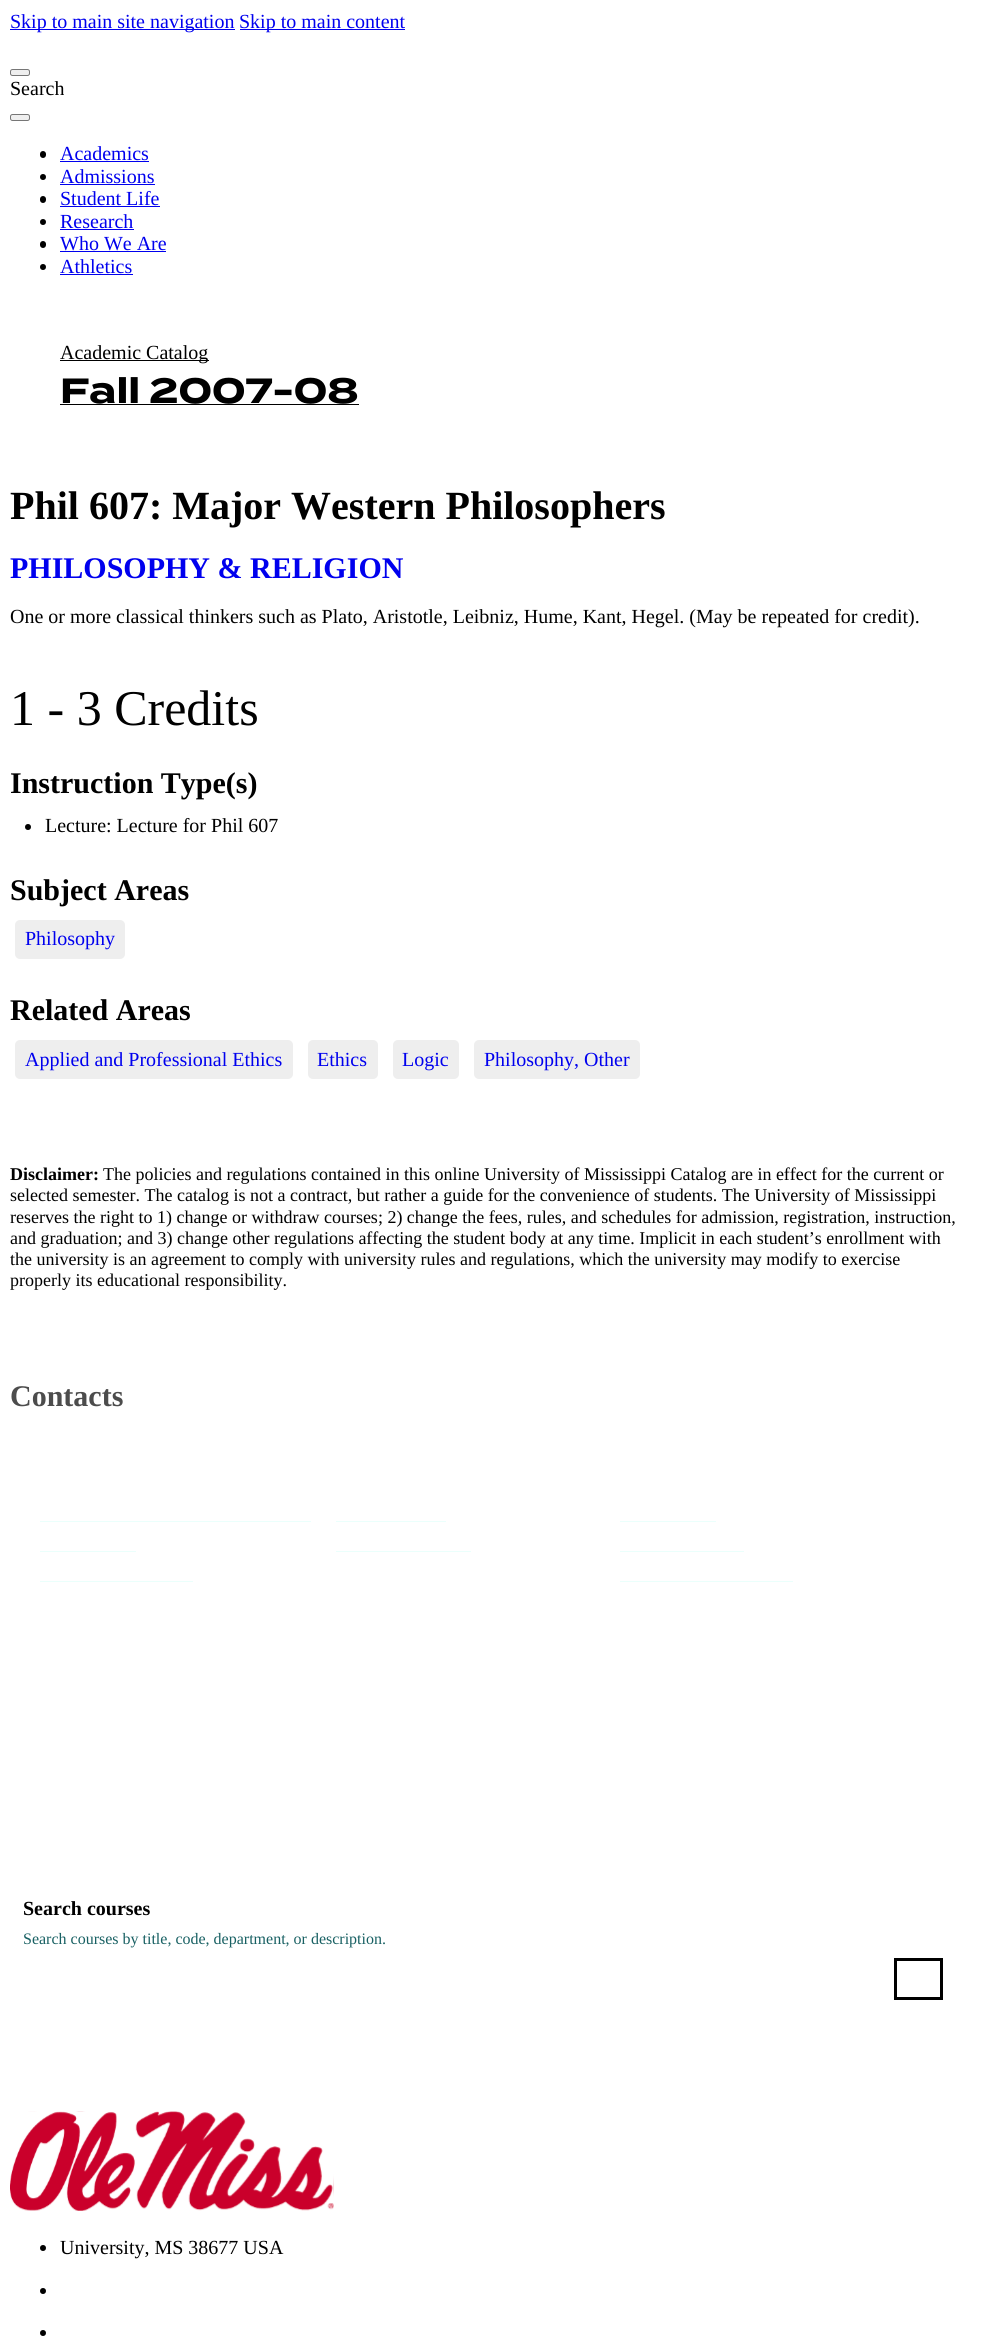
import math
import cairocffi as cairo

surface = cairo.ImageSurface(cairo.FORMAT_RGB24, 985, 2342)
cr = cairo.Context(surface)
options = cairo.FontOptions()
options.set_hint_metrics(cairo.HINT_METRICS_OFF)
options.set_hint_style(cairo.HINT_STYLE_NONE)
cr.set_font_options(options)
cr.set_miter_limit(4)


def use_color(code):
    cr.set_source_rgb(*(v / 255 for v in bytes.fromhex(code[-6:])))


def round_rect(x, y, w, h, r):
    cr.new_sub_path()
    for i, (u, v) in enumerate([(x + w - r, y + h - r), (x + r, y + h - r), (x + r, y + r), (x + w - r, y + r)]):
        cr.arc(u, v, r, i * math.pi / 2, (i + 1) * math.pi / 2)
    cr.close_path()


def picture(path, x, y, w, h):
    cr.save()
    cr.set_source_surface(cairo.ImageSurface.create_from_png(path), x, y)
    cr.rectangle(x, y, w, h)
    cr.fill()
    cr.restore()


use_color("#ffffff")
cr.paint()
use_color("#0000ee")
cr.rectangle(10, 29, 225, 1)
cr.fill()
cr.select_font_face("Liberation Serif")
cr.set_font_size(20)
cr.move_to(10, 28)
cr.show_text("Skip to main site navigation")
cr.rectangle(240, 29, 165, 1)
cr.fill()
cr.move_to(239, 28)
cr.show_text("Skip to main content")
use_color("#efefef")
round_rect(10.5, 69.5, 19, 6, 2)
cr.fill_preserve()
use_color("#767676")
cr.set_line_width(1)
cr.stroke()
use_color("#000000")
cr.move_to(10, 95)
cr.show_text("Search")
use_color("#efefef")
round_rect(10.5, 114.5, 19, 6, 2)
cr.fill_preserve()
use_color("#767676")
cr.stroke()
use_color("#000000")
round_rect(40, 151, 6, 7, 3)
cr.fill()
use_color("#0000ee")
cr.move_to(60, 160)
cr.show_text("Academics")
cr.rectangle(60, 161, 89, 1)
cr.fill()
use_color("#000000")
cr.arc(43, 177, 3, 0, 2 * math.pi)
cr.fill()
use_color("#0000ee")
cr.move_to(60, 183)
cr.show_text("Admissions")
cr.rectangle(60, 184, 95, 1)
cr.fill()
use_color("#000000")
round_rect(40, 196, 6, 7, 3)
cr.fill()
use_color("#0000ee")
cr.move_to(60, 205)
cr.show_text("Student Life")
cr.rectangle(60, 206, 100, 1)
cr.fill()
use_color("#000000")
cr.arc(43, 222, 3, 0, 2 * math.pi)
cr.fill()
use_color("#0000ee")
cr.move_to(60, 228)
cr.show_text("Research")
cr.rectangle(60, 229, 74, 1)
cr.fill()
use_color("#000000")
round_rect(40, 241, 6, 7, 3)
cr.fill()
use_color("#0000ee")
cr.move_to(60, 250)
cr.show_text("Who We Are")
cr.rectangle(60, 251, 106, 1)
cr.fill()
use_color("#000000")
cr.arc(43, 267, 3, 0, 2 * math.pi)
cr.fill()
use_color("#0000ee")
cr.move_to(60, 273)
cr.show_text("Athletics")
cr.rectangle(60, 274, 73, 1)
cr.fill()
use_color("#000000")
cr.rectangle(60, 360, 149, 1)
cr.fill()
cr.move_to(60, 359)
cr.show_text("Academic Catalog")
cr.select_font_face("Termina", cairo.FONT_SLANT_NORMAL, cairo.FONT_WEIGHT_BOLD)
cr.set_font_size(35)
cr.move_to(60, 403)
cr.show_text("Fall 2007-08")
cr.rectangle(60, 404, 299, 1)
cr.fill()
cr.select_font_face("Liberation Serif", cairo.FONT_SLANT_NORMAL, cairo.FONT_WEIGHT_BOLD)
cr.set_font_size(40)
cr.move_to(10, 519)
cr.show_text("Phil 607: Major Western Philosophers")
cr.set_font_size(30)
use_color("#0000ee")
cr.move_to(10, 578)
cr.show_text("PHILOSOPHY & RELIGION")
cr.select_font_face("Liberation Serif")
cr.set_font_size(20)
use_color("#000000")
cr.move_to(10, 623)
cr.show_text("One or more classical thinkers such as Plato, Aristotle, Leibniz, Hume, Kant, Hegel. (May be repeated for credit).")
cr.set_font_size(50)
cr.move_to(10, 725)
cr.show_text("1 - 3 Credits")
cr.select_font_face("Liberation Serif", cairo.FONT_SLANT_NORMAL, cairo.FONT_WEIGHT_BOLD)
cr.set_font_size(30)
cr.move_to(10, 793)
cr.show_text("Instruction Type(s)")
cr.new_path()
cr.arc(28, 827, 3, 0, 2 * math.pi)
cr.fill()
cr.select_font_face("Liberation Serif")
cr.set_font_size(20)
cr.move_to(45, 832)
cr.show_text("Lecture: Lecture for Phil 607")
cr.select_font_face("Liberation Serif", cairo.FONT_SLANT_NORMAL, cairo.FONT_WEIGHT_BOLD)
cr.set_font_size(30)
cr.move_to(10, 900)
cr.show_text("Subject Areas")
use_color("#eeeeee")
round_rect(15, 920, 110, 39, 5)
cr.fill()
cr.select_font_face("Liberation Serif")
cr.set_font_size(20)
use_color("#0000ee")
cr.move_to(25, 945)
cr.show_text("Philosophy")
cr.select_font_face("Liberation Serif", cairo.FONT_SLANT_NORMAL, cairo.FONT_WEIGHT_BOLD)
cr.set_font_size(30)
use_color("#000000")
cr.move_to(10, 1020)
cr.show_text("Related Areas")
use_color("#eeeeee")
round_rect(15, 1040, 278, 39, 5)
cr.fill()
cr.select_font_face("Liberation Serif")
cr.set_font_size(20)
use_color("#0000ee")
cr.move_to(25, 1066)
cr.show_text("Applied and Professional Ethics")
use_color("#eeeeee")
round_rect(308, 1040, 70, 39, 5)
cr.fill()
use_color("#0000ee")
cr.move_to(317, 1066)
cr.show_text("Ethics")
use_color("#eeeeee")
round_rect(393, 1040, 66, 39, 5)
cr.fill()
use_color("#0000ee")
cr.move_to(402, 1066)
cr.show_text("Logic")
use_color("#eeeeee")
round_rect(474, 1040, 166, 39, 5)
cr.fill()
use_color("#0000ee")
cr.move_to(484, 1066)
cr.show_text("Philosophy, Other")
cr.select_font_face("Liberation Serif", cairo.FONT_SLANT_NORMAL, cairo.FONT_WEIGHT_BOLD)
cr.set_font_size(18)
use_color("#000000")
cr.move_to(10, 1180)
cr.show_text("Disclaimer:")
cr.select_font_face("Liberation Serif")
cr.move_to(103, 1180)
cr.show_text("The policies and regulations contained in this online University of Mississippi Catalog are in effect for the current or")
cr.move_to(10, 1201)
cr.show_text("selected semester. The catalog is not a contract, but rather a guide for the convenience of students. The University of Mississippi")
cr.move_to(10, 1223)
cr.show_text("reserves the right to 1) change or withdraw courses; 2) change the fees, rules, and schedules for admission, registration, instruction,")
cr.move_to(10, 1244)
cr.show_text("and graduation; and 3) change other regulations affecting the student body at any time. Implicit in each student’s enrollment with")
cr.move_to(10, 1265)
cr.show_text("the university is an agreement to comply with university rules and regulations, which the university may modify to exercise")
cr.move_to(10, 1286)
cr.show_text("properly its educational responsibility.")
cr.select_font_face("Liberation Serif", cairo.FONT_SLANT_NORMAL, cairo.FONT_WEIGHT_BOLD)
cr.set_font_size(30)
use_color("#4c4c4c")
cr.move_to(10, 1406)
cr.show_text("Contacts")
use_color("#ebfffc")
cr.rectangle(40, 1521, 271, 1)
cr.fill()
cr.rectangle(40, 1551, 96, 1)
cr.fill()
cr.rectangle(40, 1581, 153, 1)
cr.fill()
cr.rectangle(336, 1521, 110, 1)
cr.fill()
cr.rectangle(336, 1551, 135, 1)
cr.fill()
cr.rectangle(620, 1521, 96, 1)
cr.fill()
cr.rectangle(620, 1551, 124, 1)
cr.fill()
cr.rectangle(620, 1581, 173, 1)
cr.fill()
cr.set_font_size(20)
use_color("#000000")
cr.move_to(23, 1915)
cr.show_text("Search courses")
cr.select_font_face("Liberation Serif")
cr.set_font_size(16)
use_color("#186063")
cr.move_to(23, 1944)
cr.show_text("Search courses by title, code, department, or description.")
cr.rectangle(895.5, 1959.5, 46, 39)
use_color("#000000")
cr.set_line_width(3)
cr.stroke()
picture("img1.png", 10, 2111, 324, 100)
cr.arc(43, 2248, 3, 0, 2 * math.pi)
cr.fill()
cr.set_font_size(20)
cr.move_to(60, 2254)
cr.show_text("University, MS 38677 USA")
cr.new_path()
cr.arc(43, 2291, 3, 0, 2 * math.pi)
cr.fill()
cr.arc(43, 2333, 3, 0, 2 * math.pi)
cr.fill()
surface.write_to_png("result.png")
